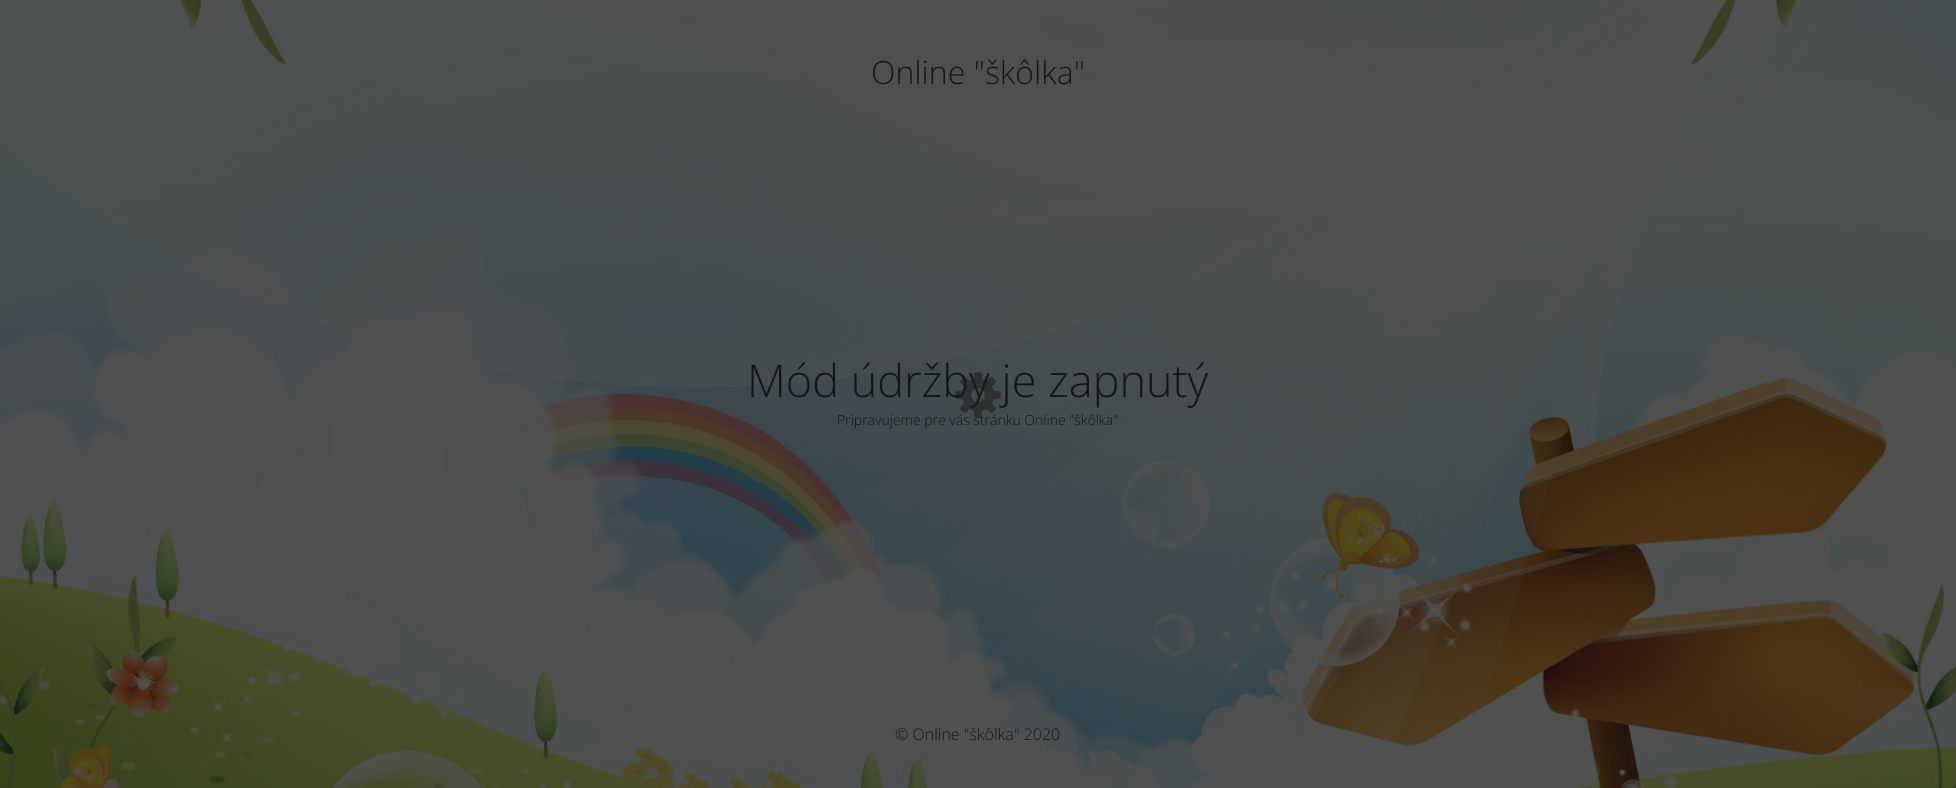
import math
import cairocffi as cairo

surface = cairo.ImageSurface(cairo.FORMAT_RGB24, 1956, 788)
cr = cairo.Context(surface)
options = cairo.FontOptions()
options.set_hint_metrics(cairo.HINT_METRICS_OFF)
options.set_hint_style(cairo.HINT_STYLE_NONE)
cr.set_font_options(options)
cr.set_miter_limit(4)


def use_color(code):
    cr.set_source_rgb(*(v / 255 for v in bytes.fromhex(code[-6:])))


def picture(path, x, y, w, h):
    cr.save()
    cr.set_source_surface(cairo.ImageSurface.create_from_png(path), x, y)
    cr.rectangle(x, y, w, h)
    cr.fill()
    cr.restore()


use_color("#ffffff")
cr.paint()
picture("img1.png", 0, 0, 1956, 788)
cr.select_font_face("Open Sans Light")
cr.set_font_size(32)
use_color("#161616")
cr.move_to(871, 84)
cr.show_text("Online \"škôlka\"")
cr.set_font_size(45)
cr.move_to(747, 397)
cr.show_text("Mód údržby je zapnutý")
cr.set_font_size(14)
cr.move_to(837, 425)
cr.show_text("Pripravujeme pre vás stránku Online \"škôlka\"")
picture("img2.png", 955, 372, 46, 46)
cr.set_font_size(16)
cr.move_to(895, 740)
cr.show_text("© Online \"škôlka\" 2020")
surface.write_to_png("result.png")
